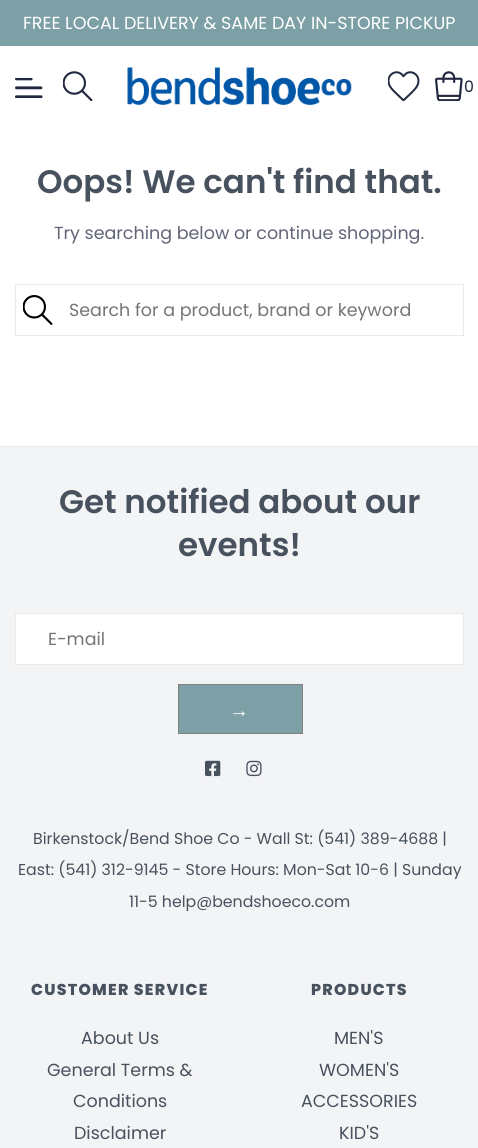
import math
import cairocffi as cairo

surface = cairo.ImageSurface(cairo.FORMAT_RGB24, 478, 1148)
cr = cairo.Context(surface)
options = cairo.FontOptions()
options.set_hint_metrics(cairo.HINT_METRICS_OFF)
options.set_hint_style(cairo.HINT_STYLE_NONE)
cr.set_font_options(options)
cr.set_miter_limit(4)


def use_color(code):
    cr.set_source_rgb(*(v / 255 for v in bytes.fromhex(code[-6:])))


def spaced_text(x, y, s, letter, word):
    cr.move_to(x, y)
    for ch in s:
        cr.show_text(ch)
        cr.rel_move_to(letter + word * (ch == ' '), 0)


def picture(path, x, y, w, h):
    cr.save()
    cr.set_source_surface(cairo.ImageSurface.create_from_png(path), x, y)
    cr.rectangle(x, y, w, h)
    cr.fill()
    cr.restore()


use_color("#ffffff")
cr.paint()
use_color("#7ca0a6")
cr.rectangle(0, 0, 478, 46)
cr.fill()
cr.select_font_face("Poppins")
cr.set_font_size(17.5)
use_color("#ffffff")
cr.move_to(23, 29)
cr.show_text("FREE LOCAL DELIVERY & SAME DAY IN-STORE PICKUP")
picture("img1.png", 15, 78, 28, 20)
picture("img2.png", 63, 71, 30, 30)
picture("img3.png", 127, 67, 225, 38)
picture("img4.png", 388, 71, 32, 30)
picture("img5.png", 435, 71, 28, 30)
cr.set_font_size(15.75)
use_color("#1b233e")
cr.move_to(464, 92)
cr.show_text("0")
cr.select_font_face("Poppins SemiBold")
cr.set_font_size(32.5)
use_color("#48515e")
cr.move_to(37, 193)
cr.show_text("Oops! We can't find that.")
cr.select_font_face("Poppins")
cr.set_font_size(17.5)
use_color("#626577")
cr.move_to(54, 239)
cr.show_text("Try searching below or continue shopping.")
picture("img6.png", 23, 295, 30, 30)
cr.rectangle(15.5, 284.5, 448, 51)
use_color("#eaeaea")
cr.set_line_width(1)
cr.stroke()
use_color("#757575")
cr.move_to(69, 316)
cr.show_text("Search for a product, brand or keyword")
use_color("#f3f4f5")
cr.rectangle(0, 447, 478, 701)
cr.fill()
use_color("#eaeaea")
cr.rectangle(0, 446, 478, 1)
cr.fill()
cr.select_font_face("Poppins SemiBold")
cr.set_font_size(32.5)
use_color("#48515e")
cr.move_to(59, 513)
cr.show_text("Get notified about our")
cr.move_to(178, 556)
cr.show_text("events!")
use_color("#ffffff")
cr.rectangle(15.5, 613.5, 448, 51)
cr.fill_preserve()
use_color("#eaeaea")
cr.stroke()
cr.select_font_face("Poppins")
cr.set_font_size(17.5)
use_color("#757575")
cr.move_to(48, 645)
cr.show_text("E-mail")
use_color("#7ca0a6")
cr.rectangle(178.5, 684.5, 124, 49)
cr.fill_preserve()
use_color("#818181")
cr.stroke()
cr.select_font_face("Liberation Sans")
cr.set_font_size(20)
use_color("#ffffff")
cr.move_to(229, 717)
cr.show_text("→")
picture("img7.png", 205, 760, 16, 17)
picture("img8.png", 246, 760, 16, 17)
cr.select_font_face("Poppins")
cr.set_font_size(15.75)
use_color("#48515e")
cr.move_to(33, 844)
cr.show_text("Birkenstock/Bend Shoe Co - Wall St: (541) 389-4688 |")
cr.move_to(18, 875)
cr.show_text("East: (541) 312-9145 - Store Hours: Mon-Sat 10-6 | Sunday")
cr.move_to(129, 907)
cr.show_text("11-5 help@bendshoeco.com")
cr.select_font_face("Poppins ExtraBold")
spaced_text(31, 995, "CUSTOMER SERVICE", 1.25, 0)
cr.select_font_face("Poppins")
cr.set_font_size(17.5)
cr.move_to(81, 1044)
cr.show_text("About Us")
cr.move_to(47, 1076)
cr.show_text("General Terms &")
cr.move_to(73, 1107)
cr.show_text("Conditions")
cr.move_to(74, 1139)
cr.show_text("Disclaimer")
cr.select_font_face("Poppins ExtraBold")
cr.set_font_size(15.75)
spaced_text(311, 995, "PRODUCTS", 1.25, 0)
cr.select_font_face("Poppins")
cr.set_font_size(17.5)
cr.move_to(334, 1044)
cr.show_text("MEN'S")
cr.move_to(319, 1076)
cr.show_text("WOMEN'S")
cr.move_to(301, 1107)
cr.show_text("ACCESSORIES")
cr.move_to(339, 1139)
cr.show_text("KID'S")
surface.write_to_png("result.png")
